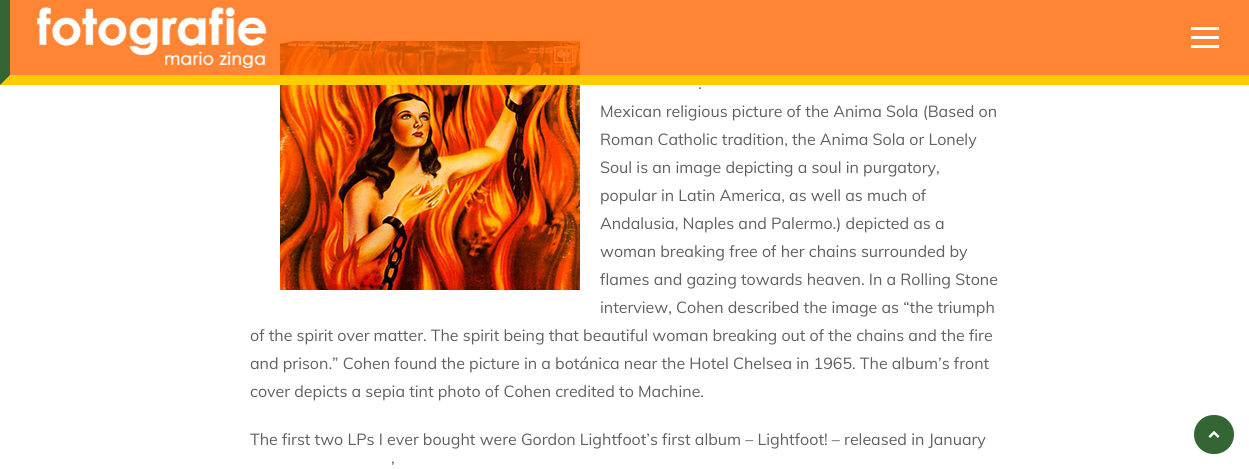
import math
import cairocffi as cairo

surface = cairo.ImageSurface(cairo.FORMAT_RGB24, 1249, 469)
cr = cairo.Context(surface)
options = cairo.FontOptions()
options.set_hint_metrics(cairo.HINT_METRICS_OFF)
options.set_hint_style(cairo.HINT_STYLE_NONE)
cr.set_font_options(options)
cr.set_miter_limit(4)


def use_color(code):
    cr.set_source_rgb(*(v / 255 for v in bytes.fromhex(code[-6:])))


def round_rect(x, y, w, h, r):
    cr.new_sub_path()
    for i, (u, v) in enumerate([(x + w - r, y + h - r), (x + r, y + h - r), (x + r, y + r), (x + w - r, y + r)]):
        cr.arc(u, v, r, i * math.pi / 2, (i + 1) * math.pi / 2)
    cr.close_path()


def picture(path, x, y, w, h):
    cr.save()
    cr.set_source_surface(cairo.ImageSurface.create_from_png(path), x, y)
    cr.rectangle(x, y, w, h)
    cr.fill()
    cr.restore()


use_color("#ffffff")
cr.paint()
picture("img2.png", 280, 41, 300, 249)
cr.set_source_rgba(1, 0.4, 0, 0.8)
cr.rectangle(0, 0, 1249, 85)
cr.fill()
use_color("#ffcc00")
cr.new_path()
cr.move_to(1249, 85)
cr.line_to(0, 85)
cr.line_to(10, 75)
cr.line_to(1249, 75)
cr.close_path()
cr.fill()
use_color("#346534")
cr.new_path()
cr.move_to(0, 85)
cr.line_to(0, 0)
cr.line_to(10, 0)
cr.line_to(10, 75)
cr.close_path()
cr.fill()
picture("img1.png", 37, 7, 230, 62)
use_color("#ffffff")
cr.rectangle(1191, 27, 28, 3)
cr.fill()
cr.rectangle(1191, 36, 28, 3)
cr.fill()
cr.rectangle(1191, 45, 28, 3)
cr.fill()
cr.select_font_face("Muli")
cr.set_font_size(16)
use_color("#606060")
cr.move_to(698, 89)
cr.show_text(".")
cr.move_to(600, 117)
cr.show_text("Mexican religious picture of the Anima Sola (Based on")
cr.move_to(600, 145)
cr.show_text("Roman Catholic tradition, the Anima Sola or Lonely")
cr.move_to(600, 173)
cr.show_text("Soul is an image depicting a soul in purgatory,")
cr.move_to(600, 201)
cr.show_text("popular in Latin America, as well as much of")
cr.move_to(600, 229)
cr.show_text("Andalusia, Naples and Palermo.) depicted as a")
cr.move_to(600, 257)
cr.show_text("woman breaking free of her chains surrounded by")
cr.move_to(600, 285)
cr.show_text("flames and gazing towards heaven. In a Rolling Stone")
cr.move_to(600, 313)
cr.show_text("interview, Cohen described the image as “the triumph")
cr.move_to(250, 341)
cr.show_text("of the spirit over matter. The spirit being that beautiful woman breaking out of the chains and the fire")
cr.move_to(250, 369)
cr.show_text("and prison.” Cohen found the picture in a botánica near the Hotel Chelsea in 1965. The album’s front")
cr.move_to(250, 397)
cr.show_text("cover depicts a sepia tint photo of Cohen credited to Machine.")
cr.move_to(250, 445)
cr.show_text("The first two LPs I ever bought were Gordon Lightfoot’s first album – Lightfoot! – released in January")
cr.move_to(391, 473)
cr.show_text("’")
use_color("#336633")
round_rect(1194, 415, 40, 39, 19.5)
cr.fill()
picture("img3.png", 1208, 431, 12, 7)
surface.write_to_png("result.png")
